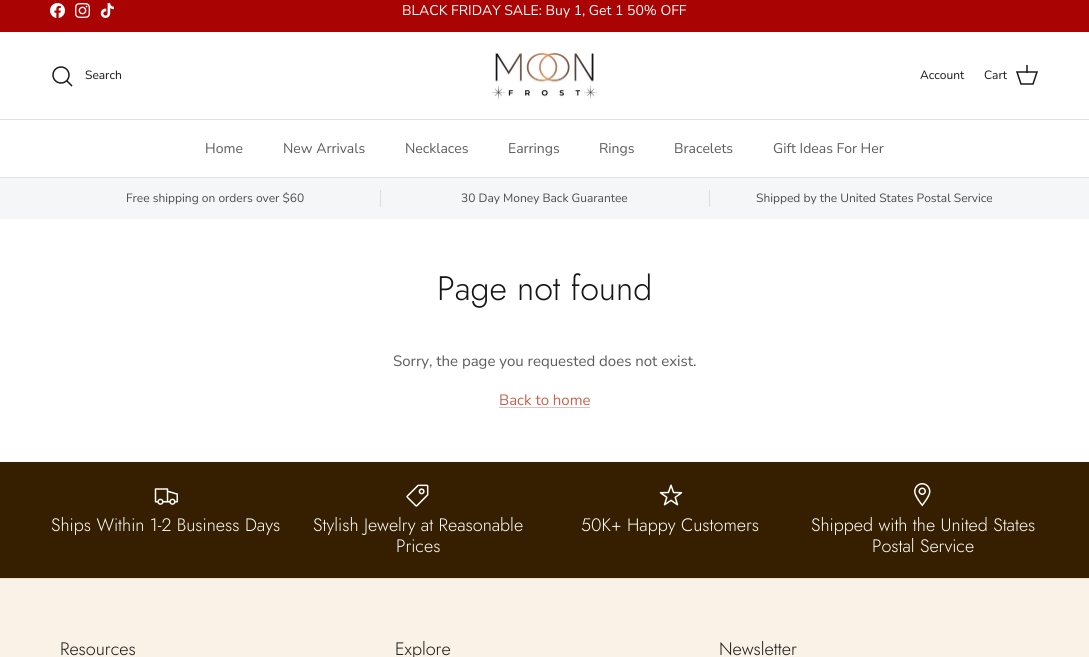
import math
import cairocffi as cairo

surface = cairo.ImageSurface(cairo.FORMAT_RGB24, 1089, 657)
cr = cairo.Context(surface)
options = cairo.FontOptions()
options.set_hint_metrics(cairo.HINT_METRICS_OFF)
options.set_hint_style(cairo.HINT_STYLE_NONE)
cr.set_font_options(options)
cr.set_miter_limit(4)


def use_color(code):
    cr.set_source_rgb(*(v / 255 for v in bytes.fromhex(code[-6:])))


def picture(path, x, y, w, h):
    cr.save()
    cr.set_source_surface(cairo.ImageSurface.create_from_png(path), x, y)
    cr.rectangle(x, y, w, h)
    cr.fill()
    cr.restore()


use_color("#ffffff")
cr.paint()
use_color("#a90303")
cr.rectangle(0, 0, 1089, 32)
cr.fill()
picture("img1.png", 50, 3, 15, 15)
picture("img2.png", 75, 3, 15, 15)
picture("img3.png", 100, 3, 14, 15)
cr.select_font_face("Nunito Sans")
cr.set_font_size(14)
use_color("#ffffff")
cr.move_to(402, 15)
cr.show_text("BLACK FRIDAY SALE: Buy 1, Get 1 50% OFF")
use_color("#dfe3e8")
cr.rectangle(0, 119, 1089, 1)
cr.fill()
cr.arc(61, 75, 8, 0, 2 * math.pi)
use_color("#171717")
cr.set_line_width(1.5)
cr.stroke()
cr.set_font_size(12)
cr.move_to(85, 79)
cr.show_text("Search")
cr.new_path()
cr.move_to(67, 81)
cr.line_to(71.5, 85.5)
cr.set_line_cap(cairo.LINE_CAP_SQUARE)
cr.stroke()
picture("img4.png", 491, 52, 106, 47)
cr.move_to(920, 79)
cr.show_text("Account")
cr.move_to(984, 79)
cr.show_text("Cart")
cr.new_path()
cr.move_to(1017, 72)
cr.line_to(1037, 72)
cr.line_to(1033, 84)
cr.line_to(1021, 84)
cr.close_path()
cr.set_line_cap(cairo.LINE_CAP_BUTT)
cr.stroke()
cr.set_source_rgba(0.09, 0.09, 0.09, 0.75)
cr.rectangle(1026, 65, 2, 8)
cr.fill()
use_color("#dfe3e8")
cr.rectangle(0, 177, 1089, 1)
cr.fill()
cr.set_font_size(14)
use_color("#5c5c5c")
cr.move_to(205, 153)
cr.show_text("Home")
cr.move_to(283, 153)
cr.show_text("New Arrivals")
cr.move_to(405, 153)
cr.show_text("Necklaces")
cr.move_to(508, 153)
cr.show_text("Earrings")
cr.move_to(599, 153)
cr.show_text("Rings")
cr.move_to(674, 153)
cr.show_text("Bracelets")
cr.move_to(773, 153)
cr.show_text("Gift Ideas For Her")
use_color("#f4f6f8")
cr.rectangle(0, 178, 1089, 41)
cr.fill()
cr.set_font_size(12)
use_color("#4c4c4b")
cr.move_to(126, 202)
cr.show_text("Free shipping on orders over $60")
use_color("#dbddde")
cr.rectangle(380, 190, 1, 17)
cr.fill()
use_color("#4c4c4b")
cr.move_to(461, 202)
cr.show_text("30 Day Money Back Guarantee")
use_color("#dbddde")
cr.rectangle(709, 190, 1, 17)
cr.fill()
use_color("#4c4c4b")
cr.move_to(756, 202)
cr.show_text("Shipped by the United States Postal Service")
cr.select_font_face("Jost Light")
cr.set_font_size(34)
use_color("#171717")
cr.move_to(437, 300)
cr.show_text("Page not found")
cr.select_font_face("Nunito Sans")
cr.set_font_size(15)
use_color("#5c5c5c")
cr.move_to(393, 366)
cr.show_text("Sorry, the page you requested does not exist.")
use_color("#c16452")
cr.move_to(499, 405)
cr.show_text("Back to home")
use_color("#e6c1ba")
cr.rectangle(499, 407, 91, 1)
cr.fill()
use_color("#351f00")
cr.rectangle(0, 462, 1089, 116)
cr.fill()
picture("img5.png", 154, 488, 24, 17)
cr.select_font_face("Jost Light")
cr.set_font_size(18)
use_color("#ffffff")
cr.move_to(51, 531)
cr.show_text("Ships Within 1-2 Business Days")
picture("img6.png", 406, 484, 23, 23)
cr.move_to(313, 531)
cr.show_text("Stylish Jewelry at Reasonable")
cr.move_to(396, 552)
cr.show_text("Prices")
picture("img7.png", 659, 484, 24, 22)
cr.move_to(581, 531)
cr.show_text("50K+ Happy Customers")
picture("img8.png", 914, 483, 17, 24)
cr.move_to(811, 531)
cr.show_text("Shipped with the United States")
cr.move_to(872, 552)
cr.show_text("Postal Service")
use_color("#faf2e6")
cr.rectangle(0, 579, 1089, 78)
cr.fill()
use_color("#efdfc7")
cr.rectangle(0, 578, 1089, 1)
cr.fill()
use_color("#171717")
cr.move_to(60, 655)
cr.show_text("Resources")
cr.move_to(395, 655)
cr.show_text("Explore")
cr.move_to(719, 655)
cr.show_text("Newsletter")
surface.write_to_png("result.png")
